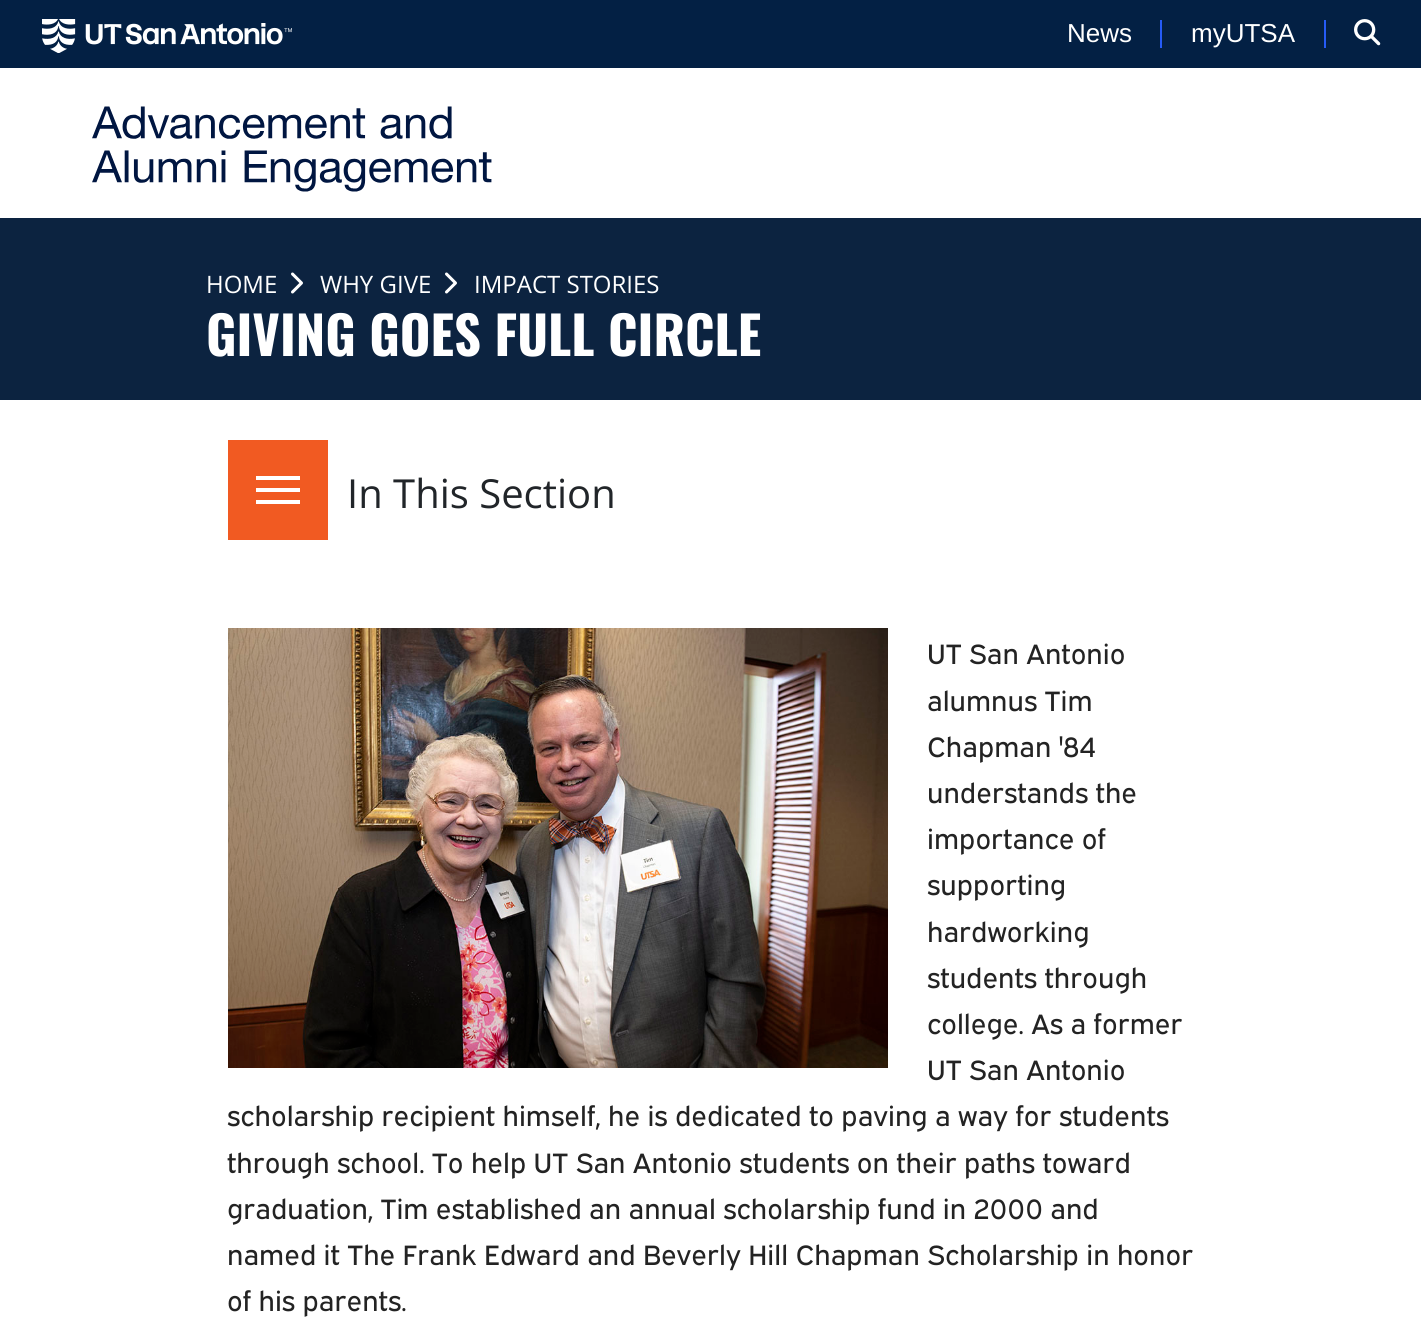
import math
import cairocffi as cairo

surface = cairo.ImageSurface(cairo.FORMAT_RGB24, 1421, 1335)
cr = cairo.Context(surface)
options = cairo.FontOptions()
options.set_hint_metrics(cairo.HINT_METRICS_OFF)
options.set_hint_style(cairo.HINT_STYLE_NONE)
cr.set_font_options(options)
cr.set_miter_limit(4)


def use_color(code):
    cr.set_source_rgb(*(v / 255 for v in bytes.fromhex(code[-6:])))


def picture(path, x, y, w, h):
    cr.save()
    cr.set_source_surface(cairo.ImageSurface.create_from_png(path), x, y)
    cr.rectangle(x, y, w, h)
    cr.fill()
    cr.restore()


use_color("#ffffff")
cr.paint()
use_color("#032044")
cr.rectangle(0, 0, 1421, 68)
cr.fill()
picture("img1.png", 42, 19, 250, 34)
cr.select_font_face("Liberation Sans")
cr.set_font_size(26)
use_color("#ffffff")
cr.move_to(1067, 42)
cr.show_text("News")
use_color("#265bf7")
cr.rectangle(1160, 20, 2, 28)
cr.fill()
use_color("#ffffff")
cr.move_to(1191, 42)
cr.show_text("myUTSA")
use_color("#265bf7")
cr.rectangle(1324, 20, 2, 28)
cr.fill()
picture("img2.png", 1354, 19, 27, 27)
picture("img3.png", 92, 106, 400, 86)
use_color("#0c2340")
cr.rectangle(0, 218, 1421, 182)
cr.fill()
cr.select_font_face("Open Sans")
cr.set_font_size(24)
use_color("#ffffff")
cr.move_to(206, 293)
cr.show_text("HOME")
picture("img4.png", 291, 272, 12, 22)
cr.move_to(320, 293)
cr.show_text("WHY GIVE")
picture("img4.png", 445, 272, 12, 22)
cr.move_to(474, 293)
cr.show_text("IMPACT STORIES")
cr.select_font_face("Oswald", cairo.FONT_SLANT_NORMAL, cairo.FONT_WEIGHT_BOLD)
cr.set_font_size(52.5)
cr.move_to(206, 356)
cr.show_text("GIVING GOES FULL CIRCLE")
use_color("#f15a22")
cr.rectangle(228, 440, 100, 100)
cr.fill()
use_color("#ffffff")
cr.rectangle(256, 488, 44, 4)
cr.fill()
cr.rectangle(256, 476, 44, 4)
cr.fill()
cr.rectangle(256, 500, 44, 4)
cr.fill()
cr.select_font_face("Open Sans")
cr.set_font_size(40)
use_color("#212529")
cr.move_to(347, 508)
cr.show_text("In This Section")
picture("img5.png", 228, 628, 660, 440)
cr.select_font_face("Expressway")
cr.set_font_size(28)
use_color("#232323")
cr.move_to(927, 664)
cr.show_text("UT San Antonio")
cr.move_to(927, 711)
cr.show_text("alumnus Tim")
cr.move_to(927, 757)
cr.show_text("Chapman '84")
cr.move_to(927, 803)
cr.show_text("understands the")
cr.move_to(927, 849)
cr.show_text("importance of")
cr.move_to(927, 895)
cr.show_text("supporting")
cr.move_to(927, 942)
cr.show_text("hardworking")
cr.move_to(927, 988)
cr.show_text("students through")
cr.move_to(927, 1034)
cr.show_text("college. As a former")
cr.move_to(927, 1080)
cr.show_text("UT San Antonio")
cr.move_to(227, 1126)
cr.show_text("scholarship recipient himself, he is dedicated to paving a way for students")
cr.move_to(227, 1173)
cr.show_text("through school. To help UT San Antonio students on their paths toward")
cr.move_to(227, 1219)
cr.show_text("graduation, Tim established an annual scholarship fund in 2000 and")
cr.move_to(227, 1265)
cr.show_text("named it The Frank Edward and Beverly Hill Chapman Scholarship in honor")
cr.move_to(227, 1311)
cr.show_text("of his parents.")
surface.write_to_png("result.png")
